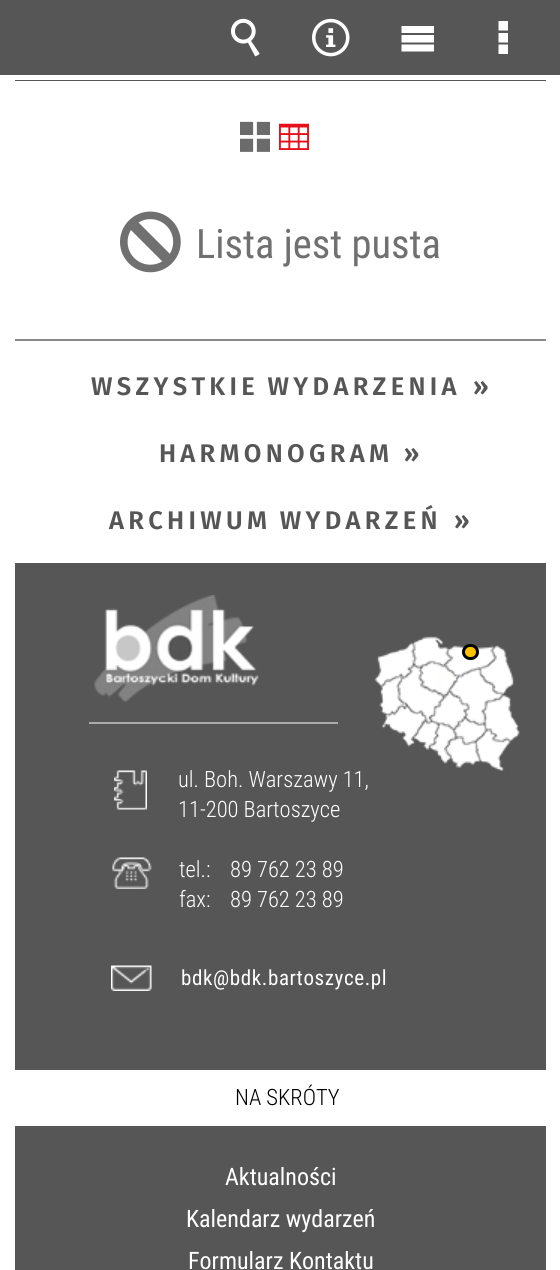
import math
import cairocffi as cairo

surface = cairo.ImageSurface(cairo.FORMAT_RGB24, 560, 1270)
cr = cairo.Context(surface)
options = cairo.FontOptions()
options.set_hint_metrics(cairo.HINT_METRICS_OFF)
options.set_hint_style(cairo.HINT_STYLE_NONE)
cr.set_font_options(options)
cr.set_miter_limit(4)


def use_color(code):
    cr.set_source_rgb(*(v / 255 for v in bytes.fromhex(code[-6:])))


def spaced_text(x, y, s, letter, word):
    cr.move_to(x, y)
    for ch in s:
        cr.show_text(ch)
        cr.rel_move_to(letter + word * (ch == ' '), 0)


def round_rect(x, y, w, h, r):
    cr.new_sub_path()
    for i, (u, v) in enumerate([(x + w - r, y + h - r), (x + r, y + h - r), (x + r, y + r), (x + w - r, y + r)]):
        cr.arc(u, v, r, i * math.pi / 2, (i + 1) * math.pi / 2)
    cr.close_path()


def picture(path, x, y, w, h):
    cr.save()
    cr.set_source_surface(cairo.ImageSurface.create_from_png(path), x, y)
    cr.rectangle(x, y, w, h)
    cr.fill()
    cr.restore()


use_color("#ffffff")
cr.paint()
use_color("#565656")
cr.rectangle(0, 0, 560, 75)
cr.fill()
picture("img1.png", 231, 18, 29, 39)
picture("img2.png", 312, 18, 38, 39)
use_color("#ffffff")
cr.new_path()
cr.move_to(401.5, 26)
cr.line_to(401.5, 33)
cr.line_to(434, 33)
cr.line_to(434, 26)
cr.close_path()
cr.move_to(401.5, 35)
cr.line_to(401.5, 42.5)
cr.line_to(434, 42.5)
cr.line_to(434, 35)
cr.close_path()
cr.move_to(401.5, 44.5)
cr.line_to(401.5, 51.5)
cr.line_to(434, 51.5)
cr.line_to(434, 44.5)
cr.close_path()
cr.fill()
cr.new_path()
cr.move_to(498.5, 21)
cr.line_to(498.5, 30.5)
cr.line_to(508, 30.5)
cr.line_to(508, 21)
cr.close_path()
cr.move_to(498.5, 33)
cr.line_to(498.5, 42.5)
cr.line_to(508, 42.5)
cr.line_to(508, 33)
cr.close_path()
cr.move_to(498.5, 44.5)
cr.line_to(498.5, 54)
cr.line_to(508, 54)
cr.line_to(508, 44.5)
cr.close_path()
cr.fill()
use_color("#565656")
cr.rectangle(15, 80, 531, 1)
cr.fill()
picture("img3.png", 240, 121, 30, 31)
picture("img4.png", 279, 123, 30, 27)
picture("img5.png", 120, 211, 61, 62)
cr.select_font_face("Roboto Condensed")
cr.set_font_size(40.5)
use_color("#707070")
cr.move_to(196, 258)
cr.show_text("Lista jest pusta")
use_color("#898989")
cr.rectangle(15, 339, 531, 2)
cr.fill()
cr.select_font_face("Fira Sans SemiBold")
cr.set_font_size(25.5)
use_color("#565656")
spaced_text(91, 395, "WSZYSTKIE WYDARZENIA", 4.3, -2)
spaced_text(473, 395, "»", 4.3, 0)
spaced_text(159, 462, "HARMONOGRAM »", 4.3, 0)
spaced_text(109, 529, "ARCHIWUM WYDARZEŃ", 4.3, -2)
spaced_text(454, 529, "»", 4.3, 0)
cr.rectangle(15, 563, 531, 707)
cr.fill()
picture("img6.png", 94, 595, 165, 107)
use_color("#ababab")
cr.rectangle(89, 722, 249, 2)
cr.fill()
picture("img7.png", 374, 636, 146, 135)
use_color("#ffc000")
round_rect(463.5, 645.5, 14, 13, 6.5)
cr.fill_preserve()
use_color("#000000")
cr.set_line_width(3)
cr.stroke()
picture("img8.png", 114, 770, 33, 40)
cr.select_font_face("Roboto Condensed Light")
cr.set_font_size(22.5)
use_color("#ffffff")
cr.move_to(178, 787)
cr.show_text("ul. Boh. Warszawy 11,")
cr.move_to(178, 817)
cr.show_text("11-200 Bartoszyce")
picture("img9.png", 112, 857, 40, 32)
cr.move_to(179, 877)
cr.show_text("tel.:")
cr.move_to(230, 877)
cr.show_text("89 762 23 89")
cr.move_to(179, 907)
cr.show_text("fax:")
cr.move_to(230, 907)
cr.show_text("89 762 23 89")
picture("img10.png", 111, 965, 41, 26)
cr.select_font_face("Roboto Condensed")
cr.set_font_size(21)
spaced_text(181, 985, "bdk@bdk.bartoszyce.pl", 0.6, 0)
cr.rectangle(15, 1070, 531, 56)
cr.fill()
cr.select_font_face("Roboto Condensed Light")
cr.set_font_size(22.5)
use_color("#000000")
cr.move_to(235, 1105)
cr.show_text("NA SKRÓTY")
cr.select_font_face("Roboto Condensed")
cr.set_font_size(24)
use_color("#ffffff")
cr.move_to(225, 1185)
cr.show_text("Aktualności")
cr.move_to(186, 1227)
cr.show_text("Kalendarz wydarzeń")
cr.move_to(188, 1269)
cr.show_text("Formularz Kontaktu")
surface.write_to_png("result.png")
